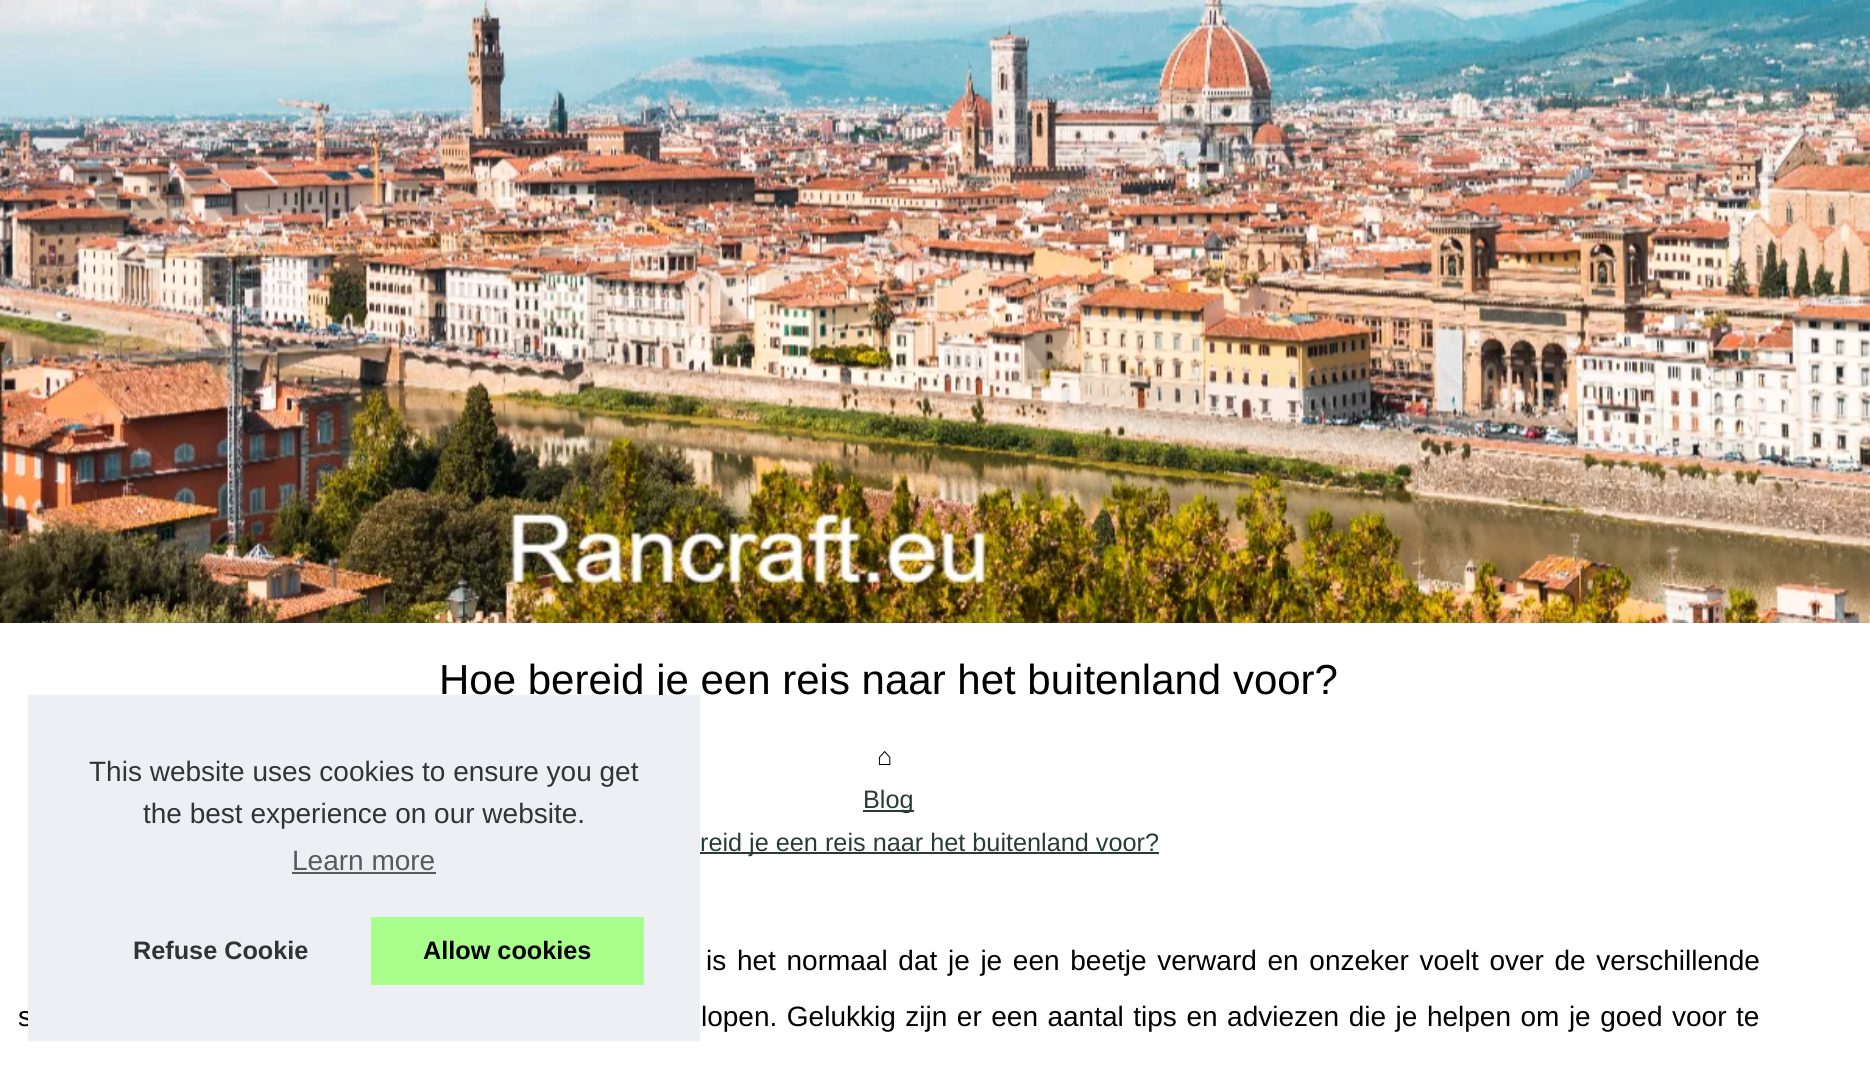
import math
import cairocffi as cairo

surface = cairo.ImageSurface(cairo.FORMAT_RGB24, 1870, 1069)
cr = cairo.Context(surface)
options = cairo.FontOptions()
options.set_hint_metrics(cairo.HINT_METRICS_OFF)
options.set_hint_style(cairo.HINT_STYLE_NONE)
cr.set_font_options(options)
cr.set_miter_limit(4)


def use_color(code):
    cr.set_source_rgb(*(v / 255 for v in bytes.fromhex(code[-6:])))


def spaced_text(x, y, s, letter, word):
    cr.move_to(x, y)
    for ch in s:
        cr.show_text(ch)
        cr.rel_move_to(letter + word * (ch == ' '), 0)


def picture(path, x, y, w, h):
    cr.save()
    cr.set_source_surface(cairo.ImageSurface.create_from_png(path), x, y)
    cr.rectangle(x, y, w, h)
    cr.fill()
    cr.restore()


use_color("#ffffff")
cr.paint()
picture("img1.png", 0, 0, 1870, 623)
cr.select_font_face("Liberation Sans")
cr.set_font_size(42)
use_color("#000000")
cr.move_to(439, 694)
cr.show_text("Hoe bereid je een reis naar het buitenland voor?")
cr.set_font_size(25.25)
cr.move_to(877, 765)
cr.show_text("⌂")
use_color("#283b36")
cr.rectangle(863, 810, 51, 2)
cr.fill()
cr.move_to(863, 808)
cr.show_text("Blog")
cr.rectangle(700, 852, 459, 2)
cr.fill()
cr.move_to(700, 851)
cr.show_text("reid je een reis naar het buitenland voor?")
cr.set_font_size(28)
use_color("#000000")
spaced_text(706, 970, "is het normaal dat je je een beetje verward en onzeker voelt over de verschillende", 0, 2.9)
spaced_text(18, 1026, "s", 0, 1.75)
spaced_text(701, 1026, "lopen. Gelukkig zijn er een aantal tips en adviezen die je helpen om je goed voor te", 0, 1.75)
use_color("#edeff5")
cr.rectangle(28, 695, 672, 346)
cr.fill()
use_color("#333333")
cr.move_to(89, 781)
cr.show_text("This website uses cookies to ensure you get")
cr.move_to(143, 823)
cr.show_text("the best experience on our website.")
use_color("#58595a")
cr.move_to(292, 870)
cr.show_text("Learn more")
cr.rectangle(292, 872, 144, 2)
cr.fill()
cr.select_font_face("Liberation Sans", cairo.FONT_SLANT_NORMAL, cairo.FONT_WEIGHT_BOLD)
cr.set_font_size(25.25)
use_color("#333333")
cr.move_to(133, 959)
cr.show_text("Refuse Cookie")
use_color("#a8ff8c")
cr.rectangle(371, 917, 273, 68)
cr.fill()
use_color("#000000")
cr.move_to(423, 959)
cr.show_text("Allow cookies")
surface.write_to_png("result.png")
